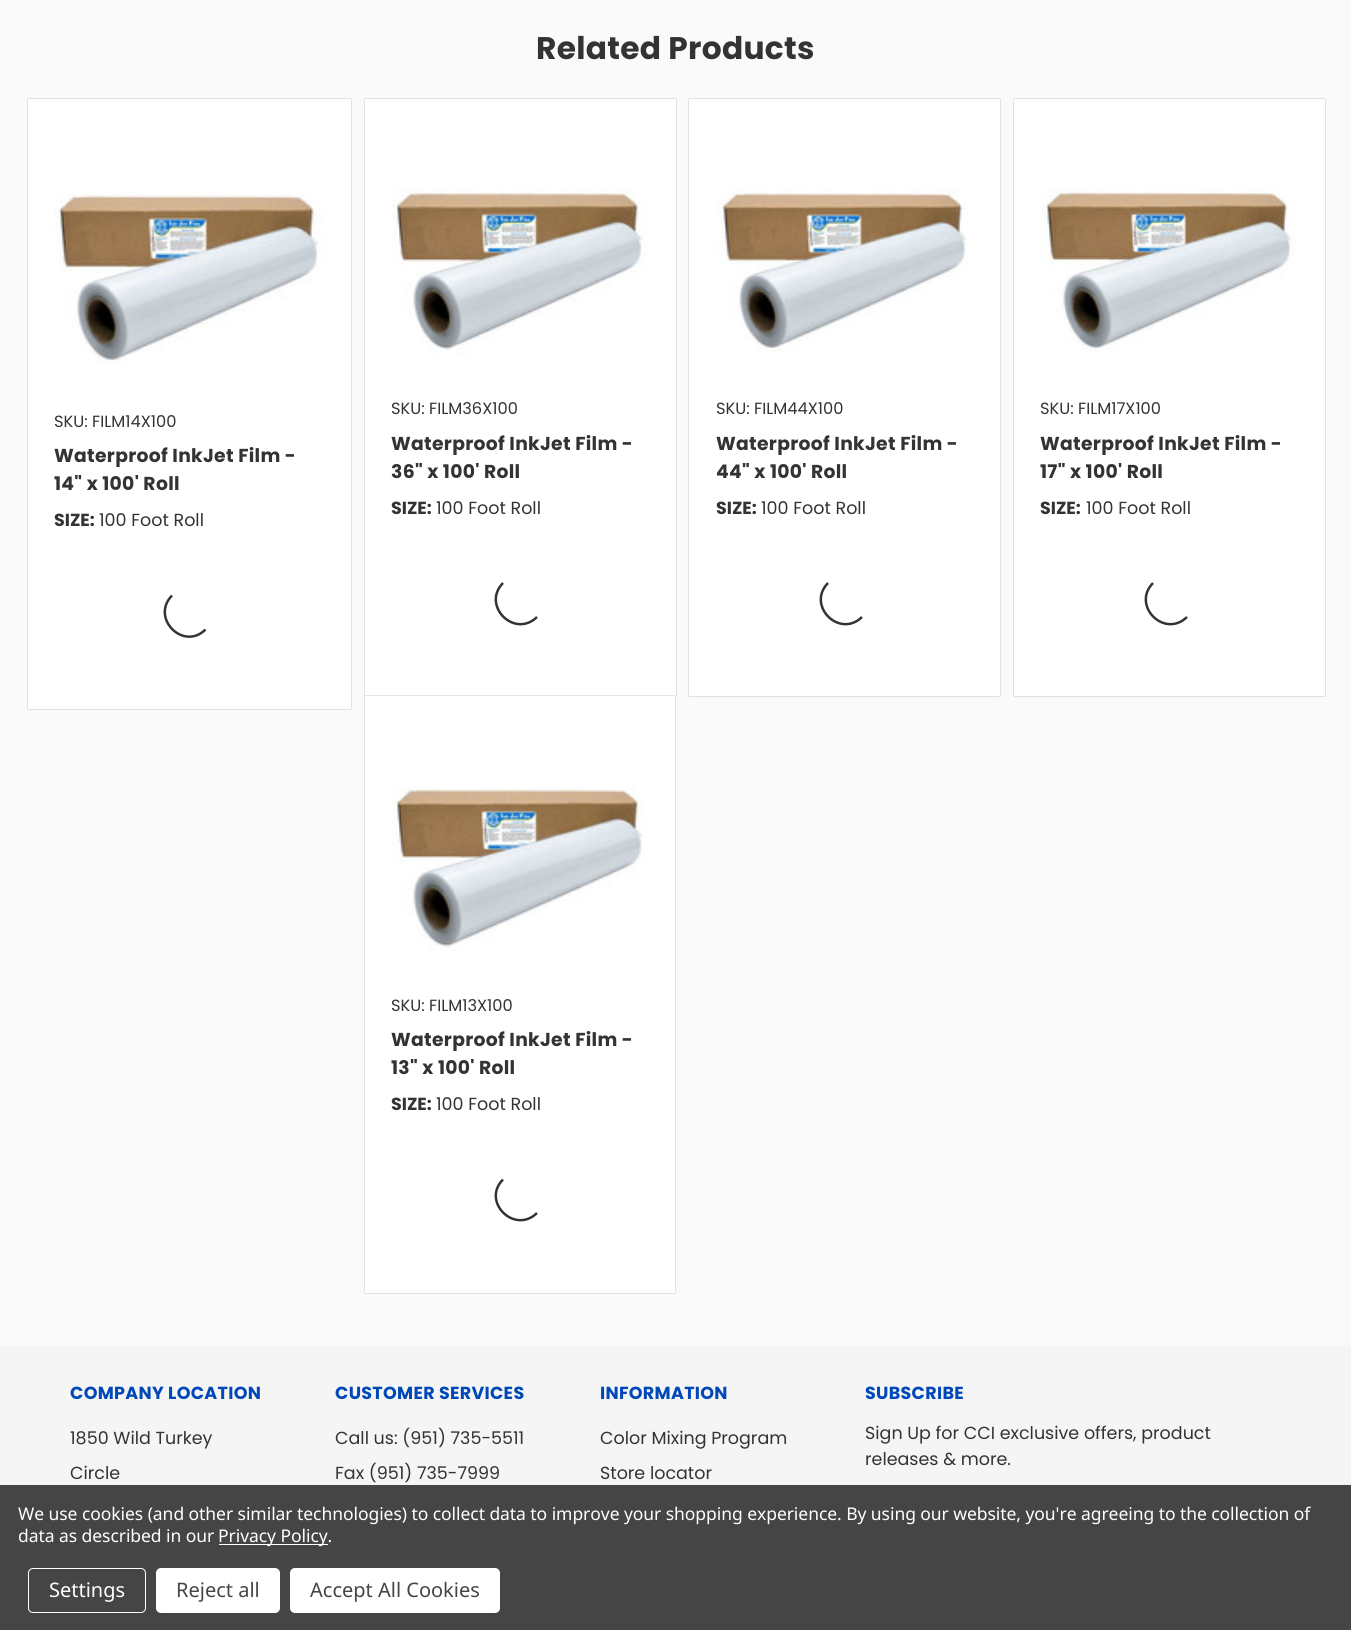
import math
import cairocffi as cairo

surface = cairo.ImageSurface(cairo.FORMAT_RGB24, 1351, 1630)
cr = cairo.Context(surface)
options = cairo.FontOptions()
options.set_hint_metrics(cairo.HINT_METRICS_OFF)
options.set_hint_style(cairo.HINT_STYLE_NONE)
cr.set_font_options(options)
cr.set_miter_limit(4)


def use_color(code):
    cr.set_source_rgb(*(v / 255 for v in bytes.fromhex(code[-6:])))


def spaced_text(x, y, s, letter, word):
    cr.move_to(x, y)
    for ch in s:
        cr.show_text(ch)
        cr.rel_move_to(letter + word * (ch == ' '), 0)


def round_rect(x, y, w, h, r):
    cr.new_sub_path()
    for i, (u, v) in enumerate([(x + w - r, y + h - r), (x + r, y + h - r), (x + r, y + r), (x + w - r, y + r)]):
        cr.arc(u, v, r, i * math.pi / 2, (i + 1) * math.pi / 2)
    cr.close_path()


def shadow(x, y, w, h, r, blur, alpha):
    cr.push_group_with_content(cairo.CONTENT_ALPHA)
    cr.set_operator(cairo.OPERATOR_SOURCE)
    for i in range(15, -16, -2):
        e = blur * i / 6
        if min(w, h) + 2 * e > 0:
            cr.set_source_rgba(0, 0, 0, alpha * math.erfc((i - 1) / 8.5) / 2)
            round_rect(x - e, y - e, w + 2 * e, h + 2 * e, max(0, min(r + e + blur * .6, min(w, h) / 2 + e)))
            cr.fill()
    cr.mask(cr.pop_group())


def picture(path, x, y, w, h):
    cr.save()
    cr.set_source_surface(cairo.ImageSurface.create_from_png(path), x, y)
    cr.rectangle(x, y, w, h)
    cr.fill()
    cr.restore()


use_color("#fafafa")
cr.paint()
cr.select_font_face("Poppins", cairo.FONT_SLANT_NORMAL, cairo.FONT_WEIGHT_BOLD)
cr.set_font_size(31.25)
use_color("#333333")
spaced_text(536, 59, "Related Products", 0.3, 0)
use_color("#333333")
shadow(28, 99, 323, 610, 0, 0.5, 0.5)
use_color("#ffffff")
cr.rectangle(28, 99, 323, 610)
cr.fill()
picture("img1.png", 53, 193, 272, 170)
cr.select_font_face("Poppins")
cr.set_font_size(16.25)
use_color("#333333")
cr.move_to(54, 427)
cr.show_text("SKU: FILM14X100")
cr.select_font_face("Poppins", cairo.FONT_SLANT_NORMAL, cairo.FONT_WEIGHT_BOLD)
cr.set_font_size(18.75)
spaced_text(54, 462, "Waterproof InkJet Film -", 0.3, 0)
spaced_text(54, 490, "14\" x 100' Roll", 0.3, 0)
cr.set_font_size(17.5)
cr.move_to(54, 526)
cr.show_text("SIZE:")
cr.select_font_face("Poppins")
cr.move_to(99, 526)
cr.show_text("100 Foot Roll")
cr.new_path()
cr.move_to(205.5, 629.5)
cr.curve_to(183.5, 651.5, 150, 618, 172, 595.5)
cr.set_line_width(2.5)
cr.stroke()
use_color("#333333")
shadow(365, 99, 311, 597, 0, 0.5, 0.5)
use_color("#ffffff")
cr.rectangle(365, 99, 311, 597)
cr.fill()
picture("img2.png", 391, 189, 256, 166)
cr.set_font_size(16.25)
use_color("#333333")
cr.move_to(391, 414)
cr.show_text("SKU: FILM36X100")
cr.select_font_face("Poppins", cairo.FONT_SLANT_NORMAL, cairo.FONT_WEIGHT_BOLD)
cr.set_font_size(18.75)
spaced_text(391, 450, "Waterproof InkJet Film -", 0.3, 0)
spaced_text(391, 478, "36\" x 100' Roll", 0.3, 0)
cr.set_font_size(17.5)
cr.move_to(391, 514)
cr.show_text("SIZE:")
cr.select_font_face("Poppins")
cr.move_to(436, 514)
cr.show_text("100 Foot Roll")
cr.new_path()
cr.move_to(537, 617)
cr.curve_to(514.5, 639, 481, 605.5, 503, 583)
cr.stroke()
use_color("#333333")
shadow(689, 99, 311, 597, 0, 0.5, 0.5)
use_color("#ffffff")
cr.rectangle(689, 99, 311, 597)
cr.fill()
picture("img3.png", 717, 189, 252, 163)
cr.set_font_size(16.25)
use_color("#333333")
cr.move_to(716, 414)
cr.show_text("SKU: FILM44X100")
cr.select_font_face("Poppins", cairo.FONT_SLANT_NORMAL, cairo.FONT_WEIGHT_BOLD)
cr.set_font_size(18.75)
spaced_text(716, 450, "Waterproof InkJet Film -", 0.3, 0)
spaced_text(716, 478, "44\" x 100' Roll", 0.3, 0)
cr.set_font_size(17.5)
cr.move_to(716, 514)
cr.show_text("SIZE:")
cr.select_font_face("Poppins")
cr.move_to(761, 514)
cr.show_text("100 Foot Roll")
cr.new_path()
cr.move_to(862, 617)
cr.curve_to(839.5, 639, 806, 605.5, 828, 583)
cr.stroke()
use_color("#333333")
shadow(1014, 99, 311, 597, 0, 0.5, 0.5)
use_color("#ffffff")
cr.rectangle(1014, 99, 311, 597)
cr.fill()
picture("img4.png", 1041, 189, 257, 163)
cr.set_font_size(16.25)
use_color("#333333")
cr.move_to(1040, 414)
cr.show_text("SKU: FILM17X100")
cr.select_font_face("Poppins", cairo.FONT_SLANT_NORMAL, cairo.FONT_WEIGHT_BOLD)
cr.set_font_size(18.75)
spaced_text(1040, 450, "Waterproof InkJet Film -", 0.3, 0)
spaced_text(1040, 478, "17\" x 100' Roll", 0.3, 0)
cr.set_font_size(17.5)
cr.move_to(1040, 514)
cr.show_text("SIZE:")
cr.select_font_face("Poppins")
cr.move_to(1086, 514)
cr.show_text("100 Foot Roll")
cr.new_path()
cr.move_to(1187, 617)
cr.curve_to(1164.5, 639, 1131, 605.5, 1153, 583)
cr.stroke()
use_color("#333333")
shadow(365, 696, 310, 597, 0, 0.5, 0.5)
use_color("#ffffff")
cr.rectangle(365, 696, 310, 597)
cr.fill()
picture("img5.png", 391, 787, 254, 164)
cr.set_font_size(16.25)
use_color("#333333")
cr.move_to(391, 1011)
cr.show_text("SKU: FILM13X100")
cr.select_font_face("Poppins", cairo.FONT_SLANT_NORMAL, cairo.FONT_WEIGHT_BOLD)
cr.set_font_size(18.75)
spaced_text(391, 1046, "Waterproof InkJet Film -", 0.3, 0)
spaced_text(391, 1074, "13\" x 100' Roll", 0.3, 0)
cr.set_font_size(17.5)
cr.move_to(391, 1110)
cr.show_text("SIZE:")
cr.select_font_face("Poppins")
cr.move_to(436, 1110)
cr.show_text("100 Foot Roll")
cr.new_path()
cr.move_to(537, 1213)
cr.curve_to(514.5, 1235, 481, 1201.5, 503, 1179.5)
cr.stroke()
use_color("#f5f5f5")
cr.rectangle(0, 1345, 1351, 140)
cr.fill()
cr.select_font_face("Poppins", cairo.FONT_SLANT_NORMAL, cairo.FONT_WEIGHT_BOLD)
use_color("#0048b8")
spaced_text(70, 1399, "COMPANY LOCATION", 0.3, 0)
cr.select_font_face("Poppins")
use_color("#333333")
cr.move_to(70, 1444)
cr.show_text("1850 Wild Turkey")
cr.move_to(70, 1479)
cr.show_text("Circle")
cr.select_font_face("Poppins", cairo.FONT_SLANT_NORMAL, cairo.FONT_WEIGHT_BOLD)
use_color("#0048b8")
spaced_text(335, 1399, "CUSTOMER SERVICES", 0.3, 0)
cr.select_font_face("Poppins")
use_color("#333333")
cr.move_to(335, 1444)
cr.show_text("Call us: (951) 735-5511")
cr.move_to(335, 1479)
cr.show_text("Fax (951) 735-7999")
cr.select_font_face("Poppins", cairo.FONT_SLANT_NORMAL, cairo.FONT_WEIGHT_BOLD)
use_color("#0048b8")
spaced_text(600, 1399, "INFORMATION", 0.3, 0)
cr.select_font_face("Poppins")
use_color("#333333")
cr.move_to(600, 1444)
cr.show_text("Color Mixing Program")
cr.move_to(600, 1479)
cr.show_text("Store locator")
cr.select_font_face("Poppins", cairo.FONT_SLANT_NORMAL, cairo.FONT_WEIGHT_BOLD)
use_color("#0048b8")
spaced_text(865, 1399, "SUBSCRIBE", 0.3, 0)
cr.select_font_face("Poppins")
use_color("#333333")
cr.move_to(865, 1439)
cr.show_text("Sign Up for CCI exclusive offers, product")
cr.move_to(865, 1465)
cr.show_text("releases & more.")
use_color("#454545")
cr.rectangle(0, 1485, 1351, 145)
cr.fill()
cr.select_font_face("Noto Sans")
use_color("#ffffff")
spaced_text(18, 1520, "We use cookies (and other similar technologies) to collect data to improve your shopping experience. By using our website, you're agreeing to the collection of", -0.06, 0)
spaced_text(18, 1542, "data as described in our", -0.06, 0)
cr.rectangle(219, 1544, 109, 1)
cr.fill()
spaced_text(218, 1542, "Privacy Policy.", -0.06, 0)
round_rect(28.5, 1568.5, 117, 44, 4.5)
cr.set_line_width(1)
cr.stroke()
cr.set_font_size(20)
cr.move_to(49, 1597)
cr.show_text("Settings")
round_rect(156, 1568, 124, 45, 5)
cr.fill()
use_color("#454545")
cr.move_to(176, 1597)
cr.show_text("Reject all")
use_color("#ffffff")
round_rect(290, 1568, 210, 45, 5)
cr.fill()
use_color("#454545")
cr.move_to(310, 1597)
cr.show_text("Accept All Cookies")
surface.write_to_png("result.png")
